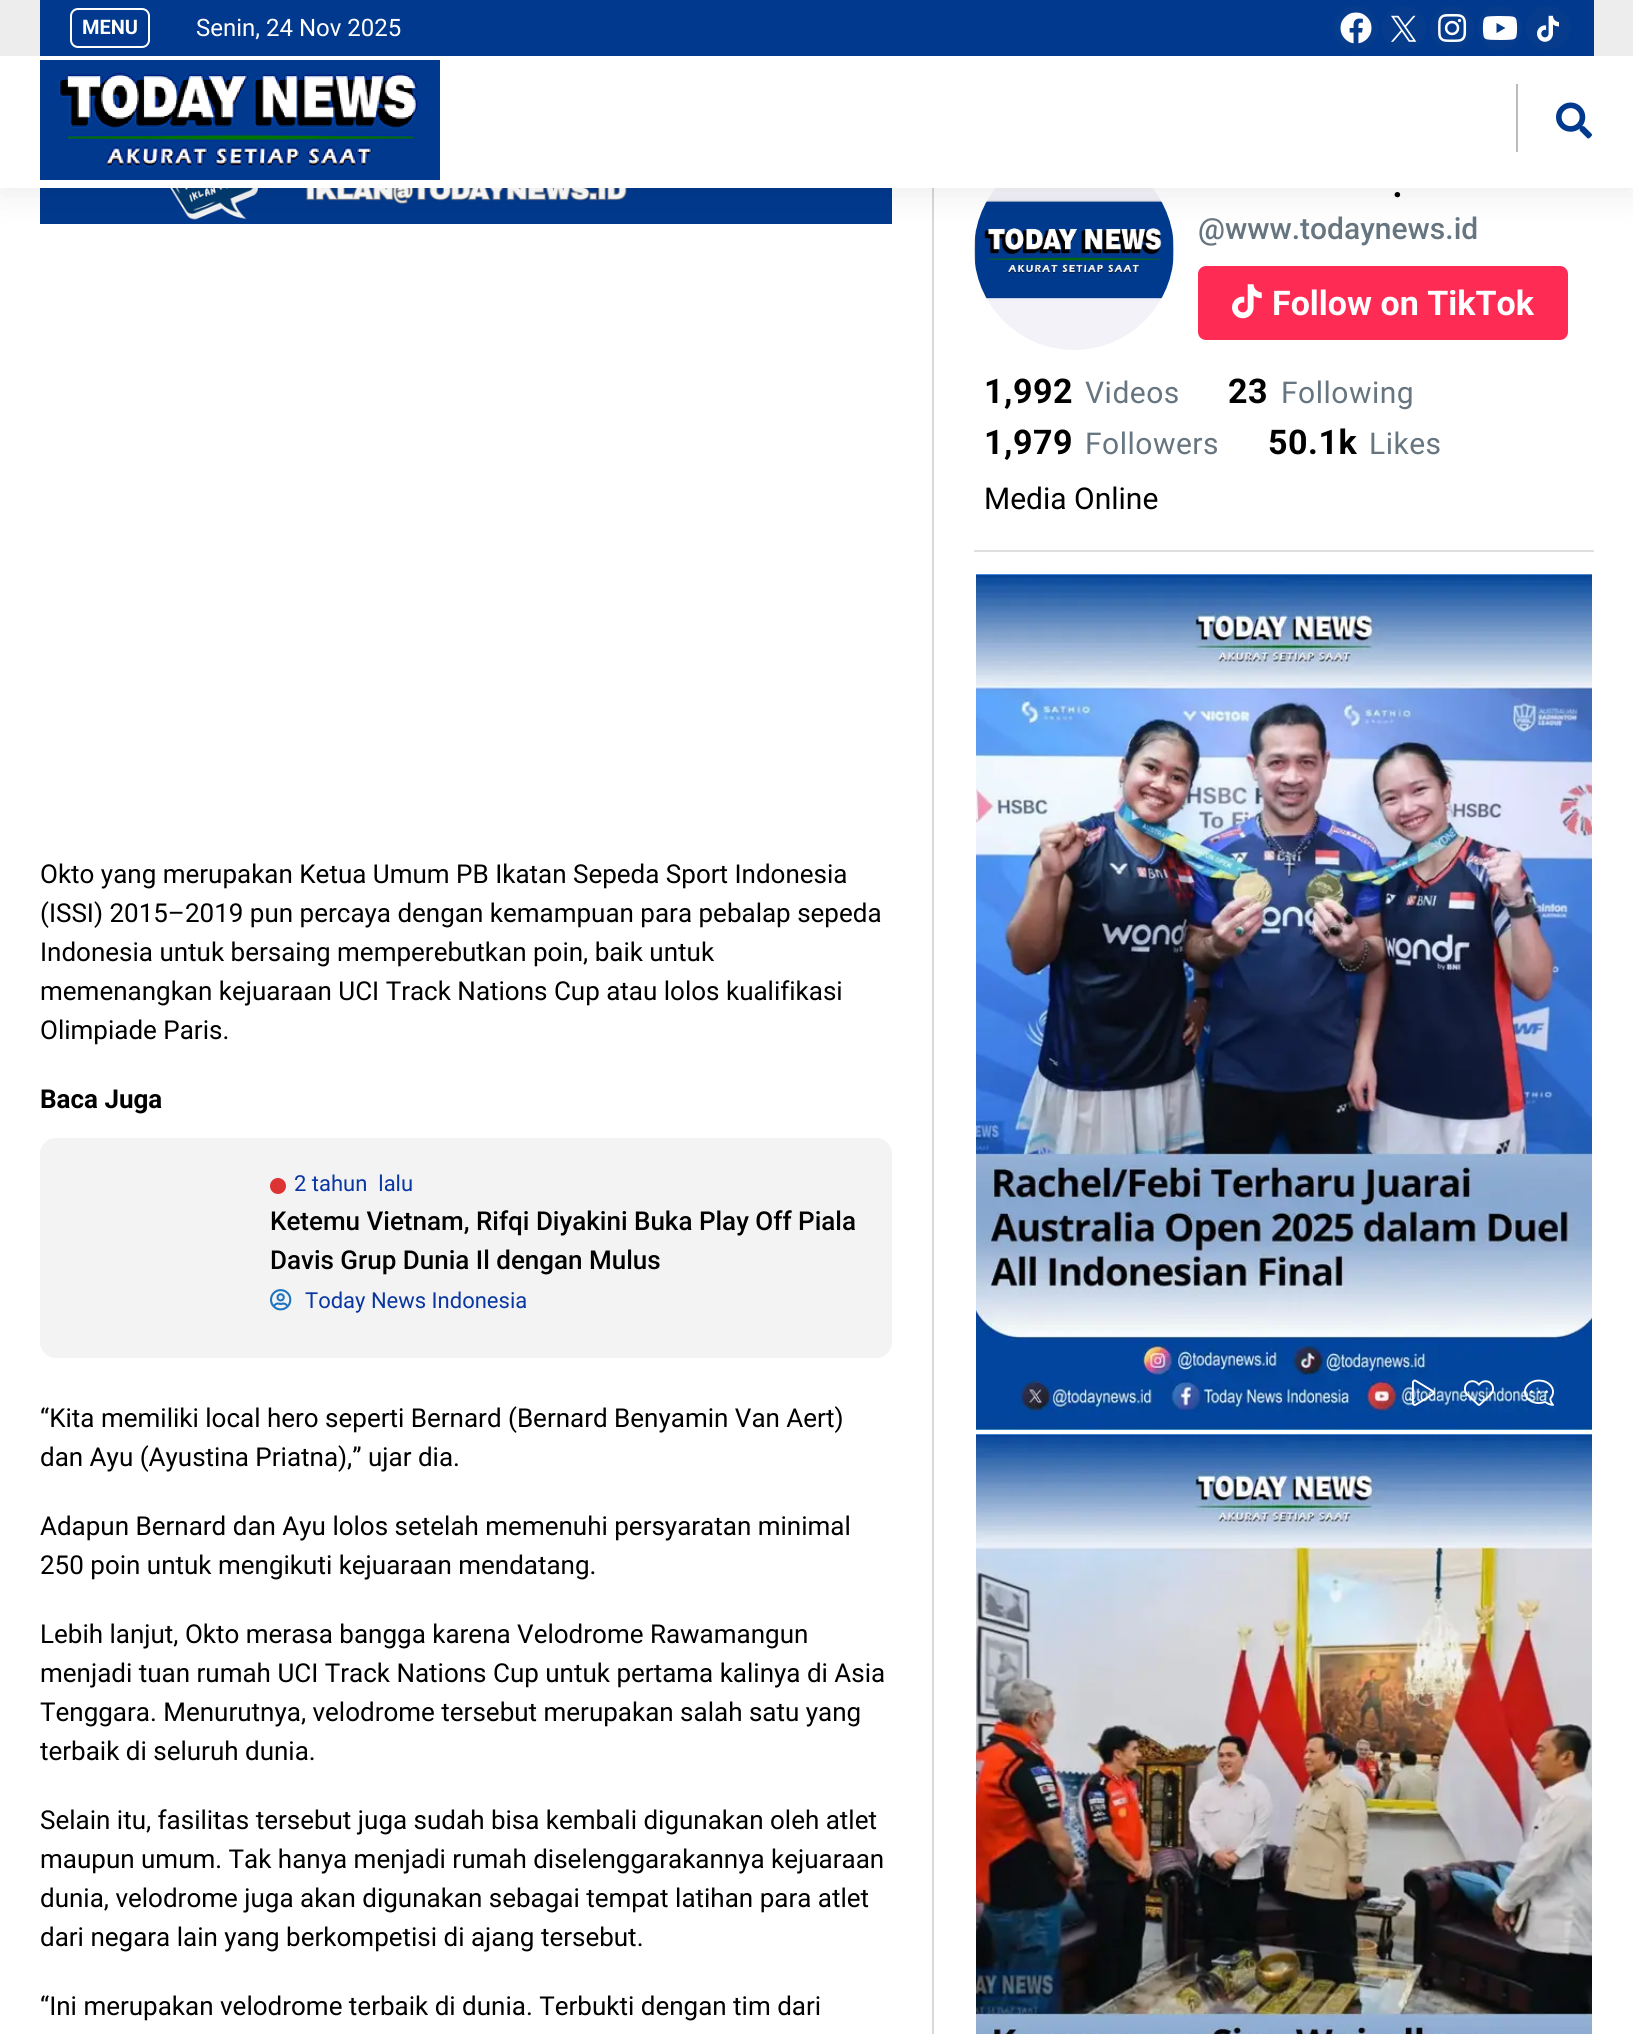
import math
import cairocffi as cairo

surface = cairo.ImageSurface(cairo.FORMAT_RGB24, 1633, 2034)
cr = cairo.Context(surface)
options = cairo.FontOptions()
options.set_hint_metrics(cairo.HINT_METRICS_OFF)
options.set_hint_style(cairo.HINT_STYLE_NONE)
cr.set_font_options(options)
cr.set_miter_limit(4)


def use_color(code):
    cr.set_source_rgb(*(v / 255 for v in bytes.fromhex(code[-6:])))


def spaced_text(x, y, s, letter, word):
    cr.move_to(x, y)
    for ch in s:
        cr.show_text(ch)
        cr.rel_move_to(letter + word * (ch == ' '), 0)


def round_rect(x, y, w, h, r):
    cr.new_sub_path()
    for i, (u, v) in enumerate([(x + w - r, y + h - r), (x + r, y + h - r), (x + r, y + r), (x + w - r, y + r)]):
        cr.arc(u, v, r, i * math.pi / 2, (i + 1) * math.pi / 2)
    cr.close_path()


def shadow(x, y, w, h, r, blur, alpha):
    cr.push_group_with_content(cairo.CONTENT_ALPHA)
    cr.set_operator(cairo.OPERATOR_SOURCE)
    for i in range(15, -16, -2):
        e = blur * i / 6
        if min(w, h) + 2 * e > 0:
            cr.set_source_rgba(0, 0, 0, alpha * math.erfc((i - 1) / 8.5) / 2)
            round_rect(x - e, y - e, w + 2 * e, h + 2 * e, max(0, min(r + e + blur * .6, min(w, h) / 2 + e)))
            cr.fill()
    cr.mask(cr.pop_group())


def picture(path, x, y, w, h):
    cr.save()
    cr.set_source_surface(cairo.ImageSurface.create_from_png(path), x, y)
    cr.rectangle(x, y, w, h)
    cr.fill()
    cr.restore()


use_color("#ffffff")
cr.paint()
picture("img8.png", 974, 188, 200, 162)
use_color("#d8d8d8")
cr.rectangle(932, 188, 2, 1846)
cr.fill()
picture("img15.png", 40, 188, 852, 36)
use_color("#000000")
shadow(0, 0, 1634, 188, 0, 20, 0.1)
use_color("#ffffff")
cr.rectangle(0, 56, 1633, 132)
cr.fill()
use_color("#ededed")
cr.rectangle(0, 0, 1633, 56)
cr.fill()
use_color("#01398e")
cr.rectangle(40, 0, 1554, 56)
cr.fill()
round_rect(71, 9, 78, 38, 7)
use_color("#ffffff")
cr.stroke()
cr.select_font_face("Roboto", cairo.FONT_SLANT_NORMAL, cairo.FONT_WEIGHT_BOLD)
cr.set_font_size(20)
cr.move_to(82, 34)
cr.show_text("MENU")
cr.select_font_face("Roboto")
cr.set_font_size(24)
cr.move_to(196, 36)
cr.show_text("Senin, 24 Nov 2025")
use_color("#073c8d")
cr.new_path()
cr.arc(1356, 28, 22, 0, 2 * math.pi)
cr.fill()
picture("img1.png", 1340, 12, 32, 32)
cr.arc(1404, 28, 22, 0, 2 * math.pi)
cr.fill()
picture("img2.png", 1391, 15, 26, 27)
cr.arc(1452, 28, 22, 0, 2 * math.pi)
cr.fill()
picture("img3.png", 1438, 14, 29, 28)
cr.arc(1500, 28, 22, 0, 2 * math.pi)
cr.fill()
picture("img4.png", 1482, 16, 36, 24)
cr.arc(1548, 28, 22, 0, 2 * math.pi)
cr.fill()
picture("img5.png", 1537, 15, 22, 27)
picture("img6.png", 40, 60, 400, 120)
use_color("#bbbbbb")
cr.rectangle(1516, 84, 2, 68)
cr.fill()
picture("img7.png", 1556, 102, 36, 37)
use_color("#dfdfdf")
cr.rectangle(974, 550, 620, 2)
cr.fill()
cr.select_font_face("Roboto Medium")
cr.set_font_size(40)
use_color("#000000")
cr.move_to(1392, 197)
cr.show_text(".")
cr.set_font_size(30)
use_color("#66757f")
cr.move_to(1198, 239)
cr.show_text("@www.todaynews.id")
use_color("#fe2c55")
round_rect(1198, 266, 370, 74, 8)
cr.fill()
picture("img9.png", 1232, 284, 30, 35)
cr.select_font_face("Roboto", cairo.FONT_SLANT_NORMAL, cairo.FONT_WEIGHT_BOLD)
cr.set_font_size(34)
use_color("#ffffff")
cr.move_to(1272, 315)
cr.show_text("Follow on TikTok")
use_color("#000000")
spaced_text(984, 403, "1,992", 0.5, 0)
cr.select_font_face("Roboto")
cr.set_font_size(30)
use_color("#66757f")
spaced_text(1085, 403, "Videos", 0.5, 0)
cr.select_font_face("Roboto", cairo.FONT_SLANT_NORMAL, cairo.FONT_WEIGHT_BOLD)
cr.set_font_size(34)
use_color("#000000")
spaced_text(1228, 403, "23", 0.5, 0)
cr.select_font_face("Roboto")
cr.set_font_size(30)
use_color("#66757f")
spaced_text(1281, 403, "Following", 0.5, 0)
cr.select_font_face("Roboto", cairo.FONT_SLANT_NORMAL, cairo.FONT_WEIGHT_BOLD)
cr.set_font_size(34)
use_color("#000000")
spaced_text(984, 454, "1,979", 0.5, 0)
cr.select_font_face("Roboto")
cr.set_font_size(30)
use_color("#66757f")
spaced_text(1085, 454, "Followers", 0.5, 0)
cr.select_font_face("Roboto", cairo.FONT_SLANT_NORMAL, cairo.FONT_WEIGHT_BOLD)
cr.set_font_size(34)
use_color("#000000")
spaced_text(1268, 454, "50.1k", 0.5, 0)
cr.select_font_face("Roboto")
cr.set_font_size(30)
use_color("#66757f")
spaced_text(1369, 454, "Likes", 0.5, 0)
use_color("#000000")
cr.move_to(984, 509)
cr.show_text("Media Online")
picture("img10.png", 976, 574, 616, 856)
picture("img11.png", 1412, 1379, 23, 27)
picture("img12.png", 1464, 1380, 30, 26)
picture("img13.png", 1524, 1379, 30, 27)
picture("img14.png", 976, 1434, 616, 600)
cr.set_font_size(26)
cr.move_to(40, 883)
cr.show_text("Okto yang merupakan Ketua Umum PB Ikatan Sepeda Sport Indonesia")
cr.move_to(40, 922)
cr.show_text("(ISSI) 2015–2019 pun percaya dengan kemampuan para pebalap sepeda")
cr.move_to(40, 961)
cr.show_text("Indonesia untuk bersaing memperebutkan poin, baik untuk")
cr.move_to(40, 1000)
cr.show_text("memenangkan kejuaraan UCI Track Nations Cup atau lolos kualifikasi")
cr.move_to(40, 1039)
cr.show_text("Olimpiade Paris.")
cr.select_font_face("Roboto", cairo.FONT_SLANT_NORMAL, cairo.FONT_WEIGHT_BOLD)
cr.move_to(40, 1108)
cr.show_text("Baca Juga")
use_color("#f3f3f3")
round_rect(40, 1138, 852, 220, 16)
cr.fill()
use_color("#dd3333")
cr.arc(278, 1186, 8, 0, 2 * math.pi)
cr.fill()
cr.select_font_face("Roboto")
cr.set_font_size(22)
use_color("#0936a0")
cr.move_to(294, 1191)
cr.show_text("2 tahun  lalu")
cr.select_font_face("Roboto Medium")
cr.set_font_size(26)
use_color("#000000")
cr.move_to(270, 1230)
cr.show_text("Ketemu Vietnam, Rifqi Diyakini Buka Play Off Piala")
cr.move_to(270, 1269)
cr.show_text("Davis Grup Dunia Il dengan Mulus")
picture("img16.png", 270, 1289, 22, 22)
cr.select_font_face("Roboto")
cr.set_font_size(22)
use_color("#0936a0")
cr.move_to(305, 1308)
cr.show_text("Today News Indonesia")
cr.set_font_size(26)
use_color("#000000")
cr.move_to(40, 1427)
cr.show_text("“Kita memiliki local hero seperti Bernard (Bernard Benyamin Van Aert)")
cr.move_to(40, 1466)
cr.show_text("dan Ayu (Ayustina Priatna),” ujar dia.")
cr.move_to(40, 1535)
cr.show_text("Adapun Bernard dan Ayu lolos setelah memenuhi persyaratan minimal")
cr.move_to(40, 1574)
cr.show_text("250 poin untuk mengikuti kejuaraan mendatang.")
cr.move_to(40, 1643)
cr.show_text("Lebih lanjut, Okto merasa bangga karena Velodrome Rawamangun")
cr.move_to(40, 1682)
cr.show_text("menjadi tuan rumah UCI Track Nations Cup untuk pertama kalinya di Asia")
cr.move_to(40, 1721)
cr.show_text("Tenggara. Menurutnya, velodrome tersebut merupakan salah satu yang")
cr.move_to(40, 1760)
cr.show_text("terbaik di seluruh dunia.")
cr.move_to(40, 1829)
cr.show_text("Selain itu, fasilitas tersebut juga sudah bisa kembali digunakan oleh atlet")
cr.move_to(40, 1868)
cr.show_text("maupun umum. Tak hanya menjadi rumah diselenggarakannya kejuaraan")
cr.move_to(40, 1907)
cr.show_text("dunia, velodrome juga akan digunakan sebagai tempat latihan para atlet")
cr.move_to(40, 1946)
cr.show_text("dari negara lain yang berkompetisi di ajang tersebut.")
cr.move_to(40, 2015)
cr.show_text("“Ini merupakan velodrome terbaik di dunia. Terbukti dengan tim dari")
surface.write_to_png("result.png")
